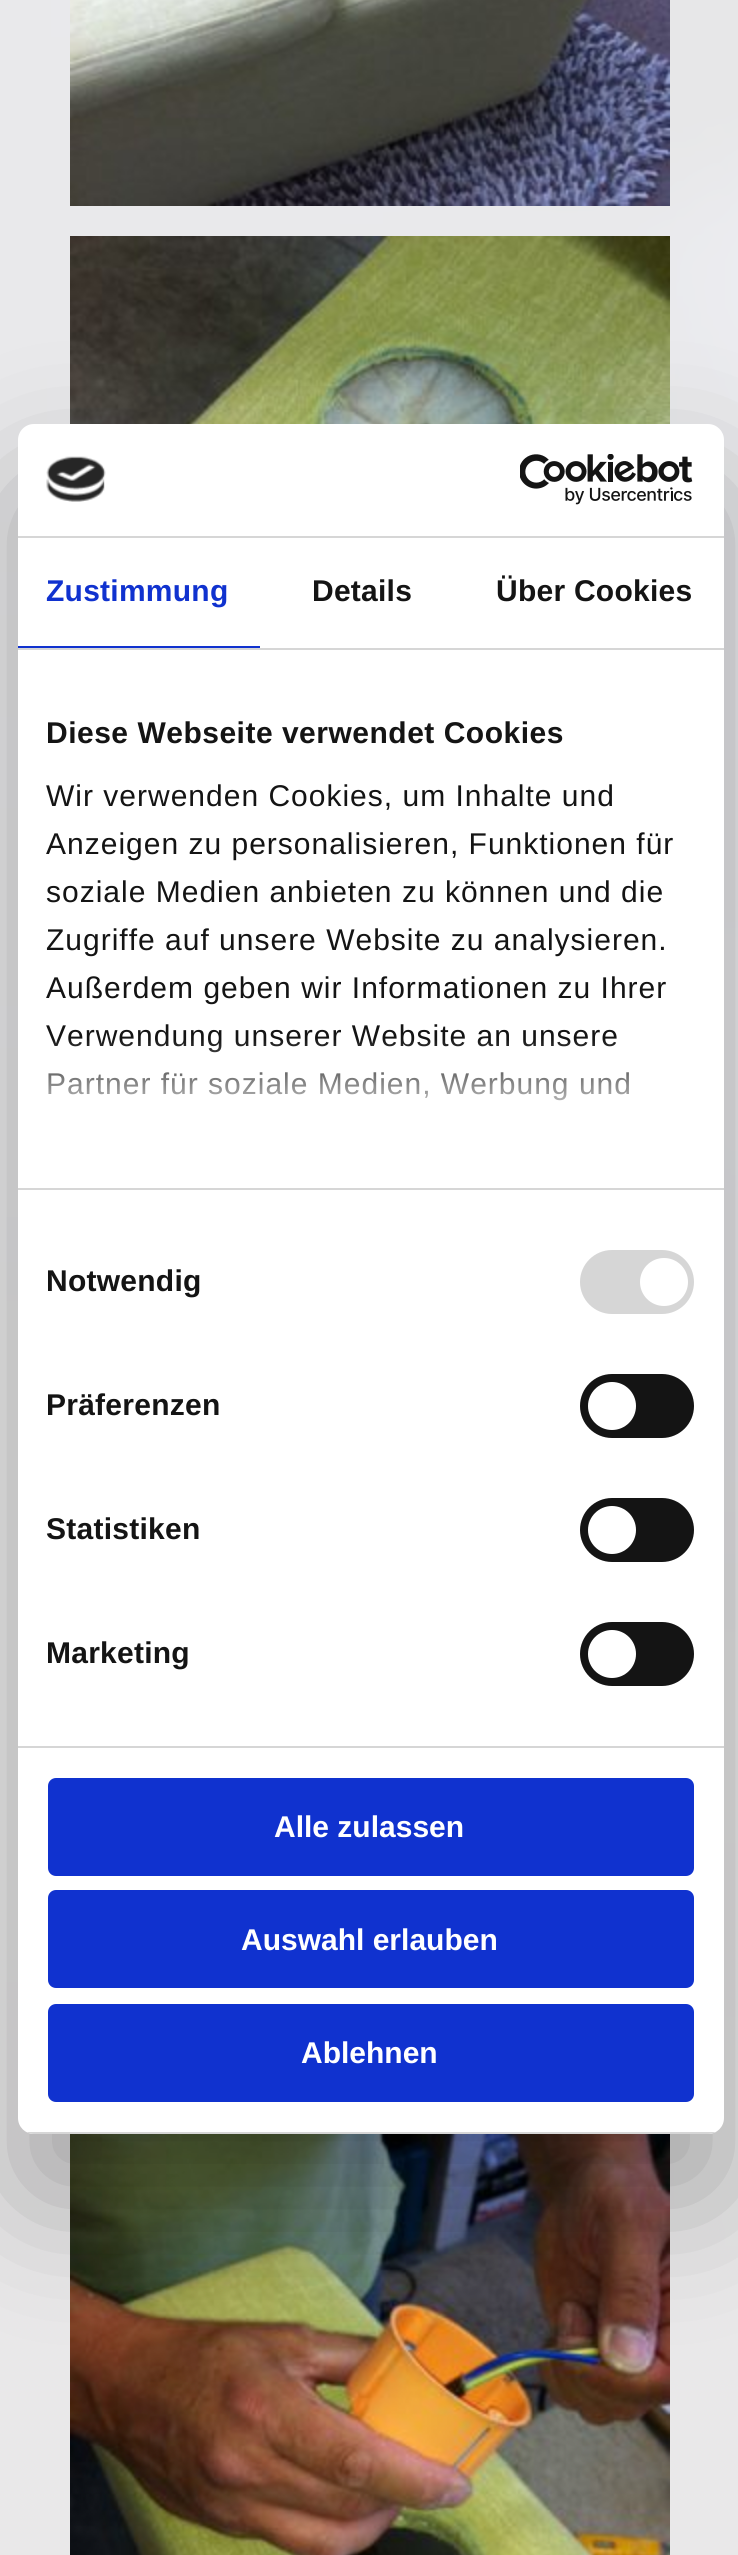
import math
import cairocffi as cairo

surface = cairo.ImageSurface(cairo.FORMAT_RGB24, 738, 2555)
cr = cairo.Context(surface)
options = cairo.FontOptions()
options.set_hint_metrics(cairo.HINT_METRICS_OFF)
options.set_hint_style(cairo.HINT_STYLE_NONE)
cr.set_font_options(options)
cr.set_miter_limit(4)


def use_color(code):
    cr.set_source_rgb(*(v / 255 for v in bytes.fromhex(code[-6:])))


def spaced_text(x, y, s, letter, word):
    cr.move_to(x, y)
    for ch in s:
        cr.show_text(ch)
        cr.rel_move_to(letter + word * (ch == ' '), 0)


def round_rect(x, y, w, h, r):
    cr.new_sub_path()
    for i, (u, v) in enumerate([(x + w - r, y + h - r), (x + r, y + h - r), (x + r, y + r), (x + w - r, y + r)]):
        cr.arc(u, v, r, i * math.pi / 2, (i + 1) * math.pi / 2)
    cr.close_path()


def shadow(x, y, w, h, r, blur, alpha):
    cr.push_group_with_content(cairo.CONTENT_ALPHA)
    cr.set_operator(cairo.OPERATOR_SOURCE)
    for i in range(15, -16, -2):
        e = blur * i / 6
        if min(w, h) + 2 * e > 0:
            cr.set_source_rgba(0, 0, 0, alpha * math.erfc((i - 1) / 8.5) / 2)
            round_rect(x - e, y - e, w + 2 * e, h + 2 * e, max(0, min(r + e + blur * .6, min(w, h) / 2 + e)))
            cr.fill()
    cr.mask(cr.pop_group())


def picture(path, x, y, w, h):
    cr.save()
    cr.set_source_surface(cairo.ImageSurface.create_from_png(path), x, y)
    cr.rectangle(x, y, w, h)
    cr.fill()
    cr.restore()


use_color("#ffffff")
cr.paint()
picture("img1.png", 0, 0, 738, 2555)
picture("img2.png", 70, 0, 600, 206)
picture("img3.png", 70, 236, 600, 188)
picture("img4.png", 70, 2134, 600, 421)
use_color("#000000")
shadow(18, 488, 706, 1710, 16, 68, 0.3)
use_color("#ffffff")
round_rect(18, 424, 706, 1710, 16)
cr.fill()
use_color("#d6d6d6")
cr.rectangle(18, 536, 706, 2)
cr.fill()
picture("img5.png", 46, 456, 60, 46)
picture("img6.png", 520, 454, 173, 51)
cr.rectangle(18, 648, 706, 2)
cr.fill()
use_color("#1032cf")
cr.rectangle(18, 646, 242, 2)
cr.fill()
cr.select_font_face("Liberation Sans", cairo.FONT_SLANT_NORMAL, cairo.FONT_WEIGHT_BOLD)
cr.set_font_size(30)
spaced_text(46, 601, "Zustimmung", 0.25, 0)
use_color("#141414")
spaced_text(312, 601, "Details", 0.25, 0)
spaced_text(496, 601, "Über Cookies", 0.25, 0)
use_color("#d6d6d6")
cr.rectangle(18, 1188, 706, 2)
cr.fill()
use_color("#141414")
spaced_text(46, 743, "Diese Webseite verwendet Cookies", 0.5, 0)
cr.select_font_face("Liberation Sans")
spaced_text(46, 806, "Wir verwenden Cookies, um Inhalte und", 1, 0)
spaced_text(46, 854, "Anzeigen zu personalisieren, Funktionen für", 1, 0)
spaced_text(46, 902, "soziale Medien anbieten zu können und die", 1, 0)
spaced_text(46, 950, "Zugriffe auf unsere Website zu analysieren.", 1, 0)
spaced_text(46, 998, "Außerdem geben wir Informationen zu Ihrer", 1, 0)
spaced_text(46, 1046, "Verwendung unserer Website an unsere", 1, 0)
spaced_text(46, 1094, "Partner für soziale Medien, Werbung und", 1, 0)
gradient = cairo.LinearGradient(357, 1188, 357, 1038)
gradient.add_color_stop_rgba(0, 1, 1, 1, 1)
gradient.add_color_stop_rgba(0.5, 1, 1, 1, 0.8)
gradient.add_color_stop_rgba(1, 1, 1, 1, 0)
cr.set_source(gradient)
cr.rectangle(48, 1040, 581, 61)
cr.fill()
use_color("#d6d6d6")
cr.rectangle(18, 1746, 706, 2)
cr.fill()
cr.select_font_face("Liberation Sans", cairo.FONT_SLANT_NORMAL, cairo.FONT_WEIGHT_BOLD)
use_color("#141414")
spaced_text(46, 1291, "Notwendig", 0.25, 0)
use_color("#d6d6d6")
round_rect(580, 1250, 114, 64, 32)
cr.fill()
use_color("#ffffff")
cr.arc(664, 1282, 24, 0, 2 * math.pi)
cr.fill()
use_color("#141414")
spaced_text(46, 1415, "Präferenzen", 0.25, 0)
round_rect(580, 1374, 114, 64, 32)
cr.fill()
use_color("#ffffff")
cr.arc(612, 1406, 24, 0, 2 * math.pi)
cr.fill()
use_color("#141414")
spaced_text(46, 1539, "Statistiken", 0.25, 0)
round_rect(580, 1498, 114, 64, 32)
cr.fill()
use_color("#ffffff")
cr.arc(612, 1530, 24, 0, 2 * math.pi)
cr.fill()
use_color("#141414")
spaced_text(46, 1663, "Marketing", 0.25, 0)
round_rect(580, 1622, 114, 64, 32)
cr.fill()
use_color("#ffffff")
cr.arc(612, 1654, 24, 0, 2 * math.pi)
cr.fill()
cr.save()
round_rect(18, 424, 706, 1710, 16)
cr.clip()
use_color("#d6d6d6")
cr.rectangle(18, 2132, 706, 2)
cr.fill()
cr.restore()
use_color("#1032cf")
round_rect(50, 1780, 642, 94, 6)
cr.fill_preserve()
cr.set_line_width(4)
cr.stroke()
use_color("#ffffff")
cr.move_to(274, 1837)
cr.show_text("Alle zulassen")
use_color("#1032cf")
round_rect(50, 1892, 642, 94, 6)
cr.fill_preserve()
cr.stroke()
use_color("#ffffff")
cr.move_to(241, 1950)
cr.show_text("Auswahl erlauben")
use_color("#1032cf")
round_rect(50, 2006, 642, 94, 6)
cr.fill_preserve()
cr.stroke()
use_color("#ffffff")
cr.move_to(301, 2063)
cr.show_text("Ablehnen")
surface.write_to_png("result.png")
